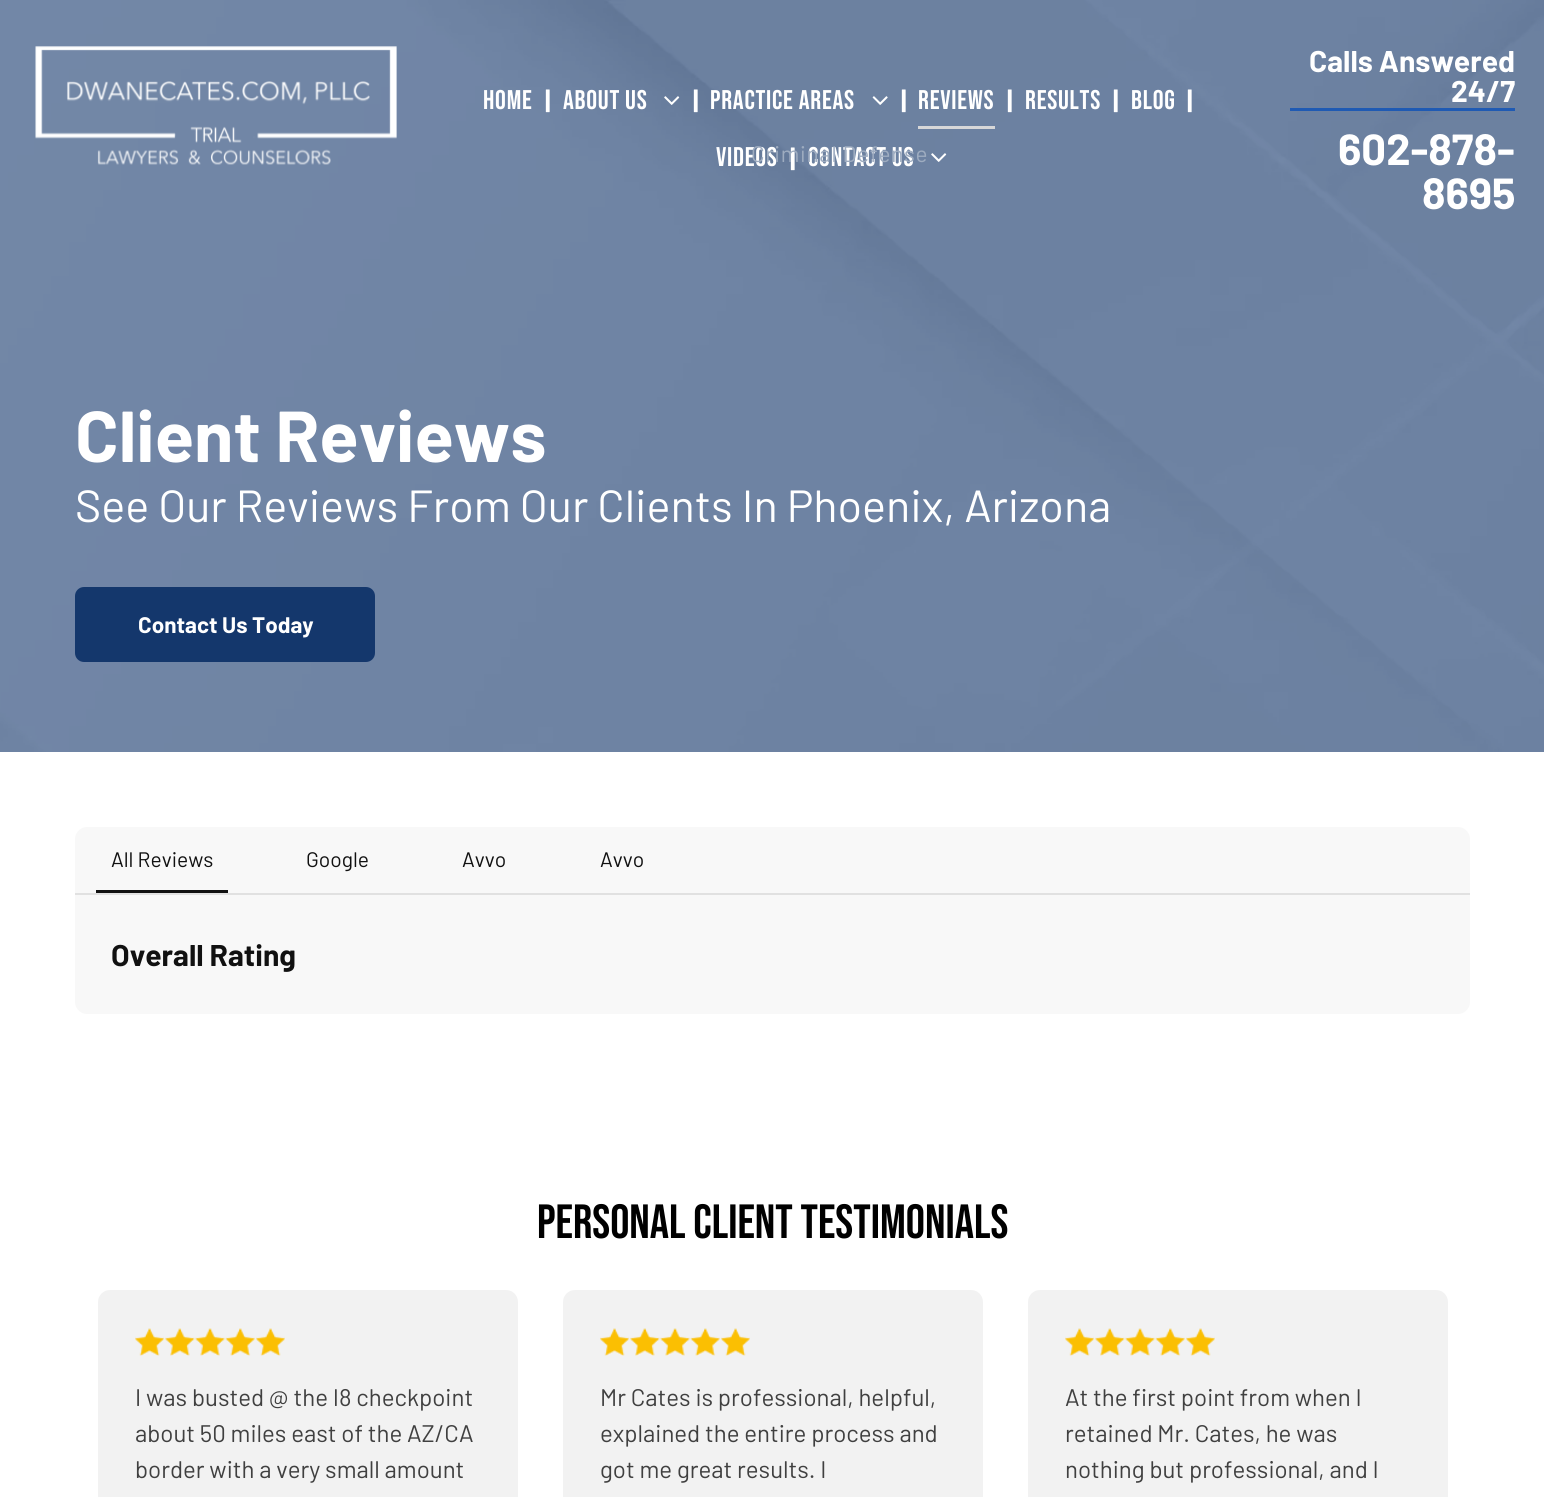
import math
import cairocffi as cairo

surface = cairo.ImageSurface(cairo.FORMAT_RGB24, 1544, 1497)
cr = cairo.Context(surface)
options = cairo.FontOptions()
options.set_hint_metrics(cairo.HINT_METRICS_OFF)
options.set_hint_style(cairo.HINT_STYLE_NONE)
cr.set_font_options(options)
cr.set_miter_limit(4)


def use_color(code):
    cr.set_source_rgb(*(v / 255 for v in bytes.fromhex(code[-6:])))


def spaced_text(x, y, s, letter, word):
    cr.move_to(x, y)
    for ch in s:
        cr.show_text(ch)
        cr.rel_move_to(letter + word * (ch == ' '), 0)


def round_rect(x, y, w, h, r):
    cr.new_sub_path()
    for i, (u, v) in enumerate([(x + w - r, y + h - r), (x + r, y + h - r), (x + r, y + r), (x + w - r, y + r)]):
        cr.arc(u, v, r, i * math.pi / 2, (i + 1) * math.pi / 2)
    cr.close_path()


def picture(path, x, y, w, h):
    cr.save()
    cr.set_source_surface(cairo.ImageSurface.create_from_png(path), x, y)
    cr.rectangle(x, y, w, h)
    cr.fill()
    cr.restore()


use_color("#ffffff")
cr.paint()
picture("img5.png", 0, 0, 1544, 752)
picture("img1.png", 35, 46, 362, 119)
cr.select_font_face("Bebas Neue")
cr.set_font_size(27)
use_color("#ffffff")
spaced_text(483, 109, "Home", 0.75, 0)
cr.select_font_face("Barlow", cairo.FONT_SLANT_NORMAL, cairo.FONT_WEIGHT_BOLD)
cr.move_to(545, 110)
cr.show_text("|")
cr.select_font_face("Bebas Neue")
spaced_text(563, 109, "About Us", 0.75, 0)
picture("img2.png", 664, 96, 16, 9)
cr.select_font_face("Barlow", cairo.FONT_SLANT_NORMAL, cairo.FONT_WEIGHT_BOLD)
cr.move_to(693, 110)
cr.show_text("|")
cr.select_font_face("Bebas Neue")
spaced_text(710, 109, "Practice Areas", 0.75, 0)
picture("img3.png", 872, 96, 16, 9)
cr.select_font_face("Barlow", cairo.FONT_SLANT_NORMAL, cairo.FONT_WEIGHT_BOLD)
cr.move_to(901, 110)
cr.show_text("|")
cr.select_font_face("Bebas Neue")
spaced_text(716, 166, "Videos", 0.75, 0)
cr.select_font_face("Barlow", cairo.FONT_SLANT_NORMAL, cairo.FONT_WEIGHT_BOLD)
cr.move_to(790, 168)
cr.show_text("|")
cr.select_font_face("Bebas Neue")
spaced_text(808, 166, "Contact Us", 0.75, 0)
cr.select_font_face("Barlow")
cr.set_font_size(22.5)
use_color("#9eacc0")
spaced_text(751, 162, "Criminal Defense", 0.7, 0)
cr.select_font_face("Bebas Neue")
cr.set_font_size(27)
use_color("#ffffff")
spaced_text(918, 109, "Reviews", 0.75, 0)
use_color("#d7d7d8")
cr.rectangle(918, 126, 77, 3)
cr.fill()
cr.select_font_face("Barlow", cairo.FONT_SLANT_NORMAL, cairo.FONT_WEIGHT_BOLD)
use_color("#ffffff")
cr.move_to(1007, 110)
cr.show_text("|")
cr.select_font_face("Bebas Neue")
spaced_text(1025, 109, "Results", 0.75, 0)
cr.select_font_face("Barlow", cairo.FONT_SLANT_NORMAL, cairo.FONT_WEIGHT_BOLD)
cr.move_to(1113, 110)
cr.show_text("|")
cr.select_font_face("Bebas Neue")
spaced_text(1131, 109, "Blog", 0.75, 0)
cr.select_font_face("Barlow", cairo.FONT_SLANT_NORMAL, cairo.FONT_WEIGHT_BOLD)
cr.move_to(1187, 110)
cr.show_text("|")
picture("img4.png", 931, 153, 16, 9)
use_color("#1f5ab3")
cr.rectangle(1290, 108, 225, 3)
cr.fill()
cr.set_font_size(30)
use_color("#ffffff")
cr.move_to(1309, 72)
cr.show_text("Calls Answered")
cr.move_to(1451, 102)
cr.show_text("24/7")
cr.set_font_size(43.5)
cr.move_to(1338, 165)
cr.show_text("602-878-")
cr.move_to(1422, 209)
cr.show_text("8695")
cr.set_font_size(72)
cr.move_to(75, 462)
cr.show_text("Client Reviews")
cr.select_font_face("Barlow")
cr.set_font_size(45)
cr.move_to(75, 522)
cr.show_text("See Our Reviews From Our Clients In Phoenix, Arizona")
use_color("#14376c")
round_rect(76, 588, 298, 73, 8)
cr.fill_preserve()
cr.stroke()
cr.select_font_face("Barlow", cairo.FONT_SLANT_NORMAL, cairo.FONT_WEIGHT_BOLD)
cr.set_font_size(22.5)
use_color("#ffffff")
cr.move_to(138, 633)
cr.show_text("Contact Us Today")
use_color("#f8f8f8")
cr.new_path()
cr.move_to(87, 827)
cr.line_to(1458, 827)
cr.curve_to(1464.5, 827, 1470, 832.5, 1470, 839)
cr.line_to(1470, 894)
cr.line_to(75, 894)
cr.line_to(75, 839)
cr.curve_to(75, 832.5, 80.5, 827, 87, 827)
cr.close_path()
cr.fill()
cr.new_path()
cr.move_to(75, 894)
cr.line_to(1470, 894)
cr.line_to(1470, 1002)
cr.curve_to(1470, 1008.5, 1464.5, 1014, 1458, 1014)
cr.line_to(87, 1014)
cr.curve_to(80.5, 1014, 75, 1008.5, 75, 1002)
cr.close_path()
cr.fill()
use_color("#e1e1e1")
cr.rectangle(75, 893, 1395, 2)
cr.fill()
cr.select_font_face("Barlow")
cr.set_font_size(21)
use_color("#111111")
cr.move_to(111, 867)
cr.show_text("All Reviews")
cr.rectangle(96, 890, 132, 3)
cr.fill()
cr.move_to(306, 867)
cr.show_text("Google")
cr.move_to(462, 867)
cr.show_text("Avvo")
cr.move_to(600, 867)
cr.show_text("Avvo")
cr.select_font_face("Barlow", cairo.FONT_SLANT_NORMAL, cairo.FONT_WEIGHT_BOLD)
cr.set_font_size(30)
cr.move_to(111, 966)
cr.show_text("Overall Rating")
cr.select_font_face("Bebas Neue")
cr.set_font_size(48)
use_color("#000000")
cr.move_to(537, 1238)
cr.show_text("Personal Client Testimonials")
use_color("#f2f2f2")
round_rect(98, 1290, 420, 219, 12)
cr.fill()
picture("img6.png", 135, 1328, 150, 28)
cr.select_font_face("Barlow")
cr.set_font_size(24)
use_color("#404040")
cr.move_to(135, 1406)
cr.show_text("I was busted @ the I8 checkpoint")
cr.move_to(135, 1442)
cr.show_text("about 50 miles east of the AZ/CA")
cr.move_to(135, 1478)
cr.show_text("border with a very small amount")
use_color("#f2f2f2")
round_rect(563, 1290, 420, 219, 12)
cr.fill()
picture("img7.png", 600, 1328, 150, 28)
use_color("#404040")
cr.move_to(600, 1406)
cr.show_text("Mr Cates is professional, helpful,")
cr.move_to(600, 1442)
cr.show_text("explained the entire process and")
cr.move_to(600, 1478)
cr.show_text("got me great results. I")
use_color("#f2f2f2")
round_rect(1028, 1290, 420, 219, 12)
cr.fill()
picture("img8.png", 1065, 1328, 150, 28)
use_color("#404040")
cr.move_to(1065, 1406)
cr.show_text("At the first point from when I")
cr.move_to(1065, 1442)
cr.show_text("retained Mr. Cates, he was")
cr.move_to(1065, 1478)
cr.show_text("nothing but professional, and I")
surface.write_to_png("result.png")
